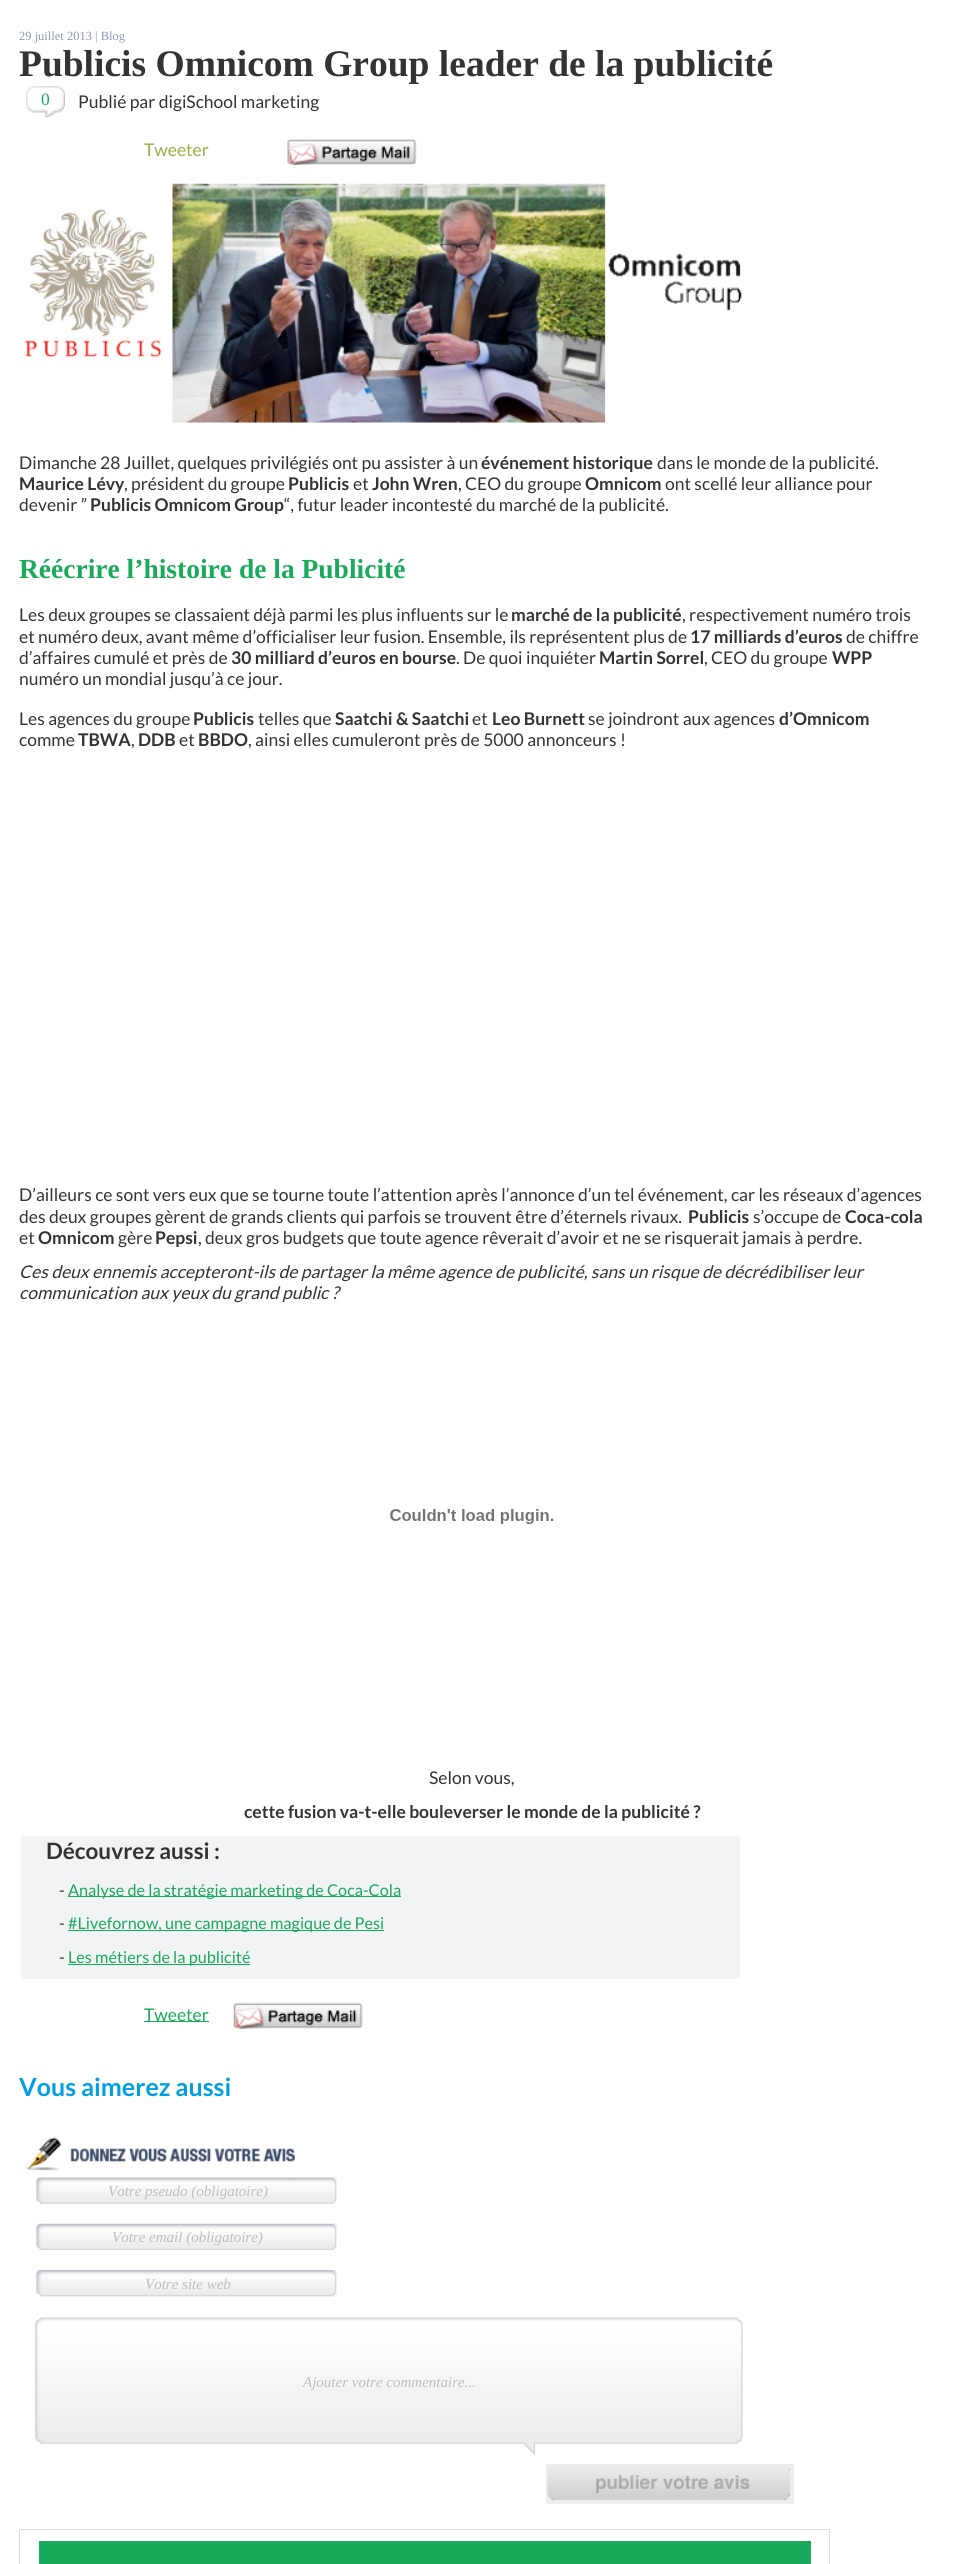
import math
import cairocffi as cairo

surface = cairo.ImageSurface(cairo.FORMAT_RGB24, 956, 2564)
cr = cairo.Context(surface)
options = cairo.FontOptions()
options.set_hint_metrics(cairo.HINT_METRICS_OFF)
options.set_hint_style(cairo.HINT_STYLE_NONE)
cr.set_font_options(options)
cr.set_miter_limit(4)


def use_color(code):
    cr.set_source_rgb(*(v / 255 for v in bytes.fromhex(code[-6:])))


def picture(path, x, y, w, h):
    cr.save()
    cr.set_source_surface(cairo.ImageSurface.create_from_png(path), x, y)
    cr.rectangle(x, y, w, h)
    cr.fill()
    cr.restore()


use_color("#ffffff")
cr.paint()
cr.select_font_face("Liberation Serif")
cr.set_font_size(12.5)
use_color("#8c9ab4")
cr.move_to(19, 40)
cr.show_text("29 juillet 2013 | Blog")
cr.select_font_face("Liberation Serif", cairo.FONT_SLANT_NORMAL, cairo.FONT_WEIGHT_BOLD)
cr.set_font_size(37.5)
use_color("#333333")
cr.move_to(19, 76)
cr.show_text("Publicis Omnicom Group leader de la publicité")
picture("img1.png", 26, 86, 39, 32)
cr.select_font_face("Liberation Serif")
cr.set_font_size(17.5)
use_color("#1aaa5b")
cr.move_to(41, 105)
cr.show_text("0")
cr.select_font_face("Lato")
use_color("#333333")
cr.move_to(78, 108)
cr.show_text("Publié par digiSchool marketing")
use_color("#96b13e")
cr.move_to(144, 156)
cr.show_text("Tweeter")
picture("img2.png", 287, 139, 130, 26)
picture("img3.png", 24, 183, 718, 240)
use_color("#333333")
cr.move_to(19, 469)
cr.show_text("Dimanche 28 Juillet, quelques privilégiés ont pu assister à un")
cr.select_font_face("Lato", cairo.FONT_SLANT_NORMAL, cairo.FONT_WEIGHT_BOLD)
cr.move_to(481, 469)
cr.show_text("événement historique")
cr.select_font_face("Lato")
cr.move_to(657, 469)
cr.show_text("dans le monde de la publicité.")
cr.select_font_face("Lato", cairo.FONT_SLANT_NORMAL, cairo.FONT_WEIGHT_BOLD)
cr.move_to(19, 490)
cr.show_text("Maurice Lévy")
cr.select_font_face("Lato")
cr.move_to(124, 490)
cr.show_text(", président du groupe")
cr.select_font_face("Lato", cairo.FONT_SLANT_NORMAL, cairo.FONT_WEIGHT_BOLD)
cr.move_to(288, 490)
cr.show_text("Publicis")
cr.select_font_face("Lato")
cr.move_to(353, 490)
cr.show_text("et")
cr.select_font_face("Lato", cairo.FONT_SLANT_NORMAL, cairo.FONT_WEIGHT_BOLD)
cr.move_to(372, 490)
cr.show_text("John Wren")
cr.select_font_face("Lato")
cr.move_to(458, 490)
cr.show_text(", CEO du groupe")
cr.select_font_face("Lato", cairo.FONT_SLANT_NORMAL, cairo.FONT_WEIGHT_BOLD)
cr.move_to(585, 490)
cr.show_text("Omnicom")
cr.select_font_face("Lato")
cr.move_to(665, 490)
cr.show_text("ont scellé leur alliance pour")
cr.move_to(19, 511)
cr.show_text("devenir ”")
cr.select_font_face("Lato", cairo.FONT_SLANT_NORMAL, cairo.FONT_WEIGHT_BOLD)
cr.move_to(90, 511)
cr.show_text("Publicis Omnicom Group")
cr.select_font_face("Lato")
cr.move_to(284, 511)
cr.show_text("“, futur leader incontesté du marché de la publicité.")
cr.select_font_face("Liberation Serif", cairo.FONT_SLANT_NORMAL, cairo.FONT_WEIGHT_BOLD)
cr.set_font_size(27.5)
use_color("#1aaa5b")
cr.move_to(19, 578)
cr.show_text("Réécrire l’histoire de la Publicité")
cr.select_font_face("Lato")
cr.set_font_size(17.5)
use_color("#333333")
cr.move_to(19, 621)
cr.show_text("Les deux groupes se classaient déjà parmi les plus influents sur le")
cr.select_font_face("Lato", cairo.FONT_SLANT_NORMAL, cairo.FONT_WEIGHT_BOLD)
cr.move_to(511, 621)
cr.show_text("marché de la publicité")
cr.select_font_face("Lato")
cr.move_to(682, 621)
cr.show_text(", respectivement numéro trois")
cr.move_to(19, 643)
cr.show_text("et numéro deux, avant même d’officialiser leur fusion. Ensemble, ils représentent plus de")
cr.select_font_face("Lato", cairo.FONT_SLANT_NORMAL, cairo.FONT_WEIGHT_BOLD)
cr.move_to(690, 643)
cr.show_text("17 milliards d’euros")
cr.select_font_face("Lato")
cr.move_to(846, 643)
cr.show_text("de chiffre")
cr.move_to(19, 664)
cr.show_text("d’affaires cumulé et près de")
cr.select_font_face("Lato", cairo.FONT_SLANT_NORMAL, cairo.FONT_WEIGHT_BOLD)
cr.move_to(231, 664)
cr.show_text("30 milliard d’euros en bourse")
cr.select_font_face("Lato")
cr.move_to(456, 664)
cr.show_text(". De quoi inquiéter")
cr.select_font_face("Lato", cairo.FONT_SLANT_NORMAL, cairo.FONT_WEIGHT_BOLD)
cr.move_to(599, 664)
cr.show_text("Martin Sorrel")
cr.select_font_face("Lato")
cr.move_to(704, 664)
cr.show_text(", CEO du groupe")
cr.select_font_face("Lato", cairo.FONT_SLANT_NORMAL, cairo.FONT_WEIGHT_BOLD)
cr.move_to(832, 664)
cr.show_text("WPP")
cr.select_font_face("Lato")
cr.move_to(19, 685)
cr.show_text("numéro un mondial jusqu’à ce jour.")
cr.move_to(19, 725)
cr.show_text("Les agences du groupe")
cr.select_font_face("Lato", cairo.FONT_SLANT_NORMAL, cairo.FONT_WEIGHT_BOLD)
cr.move_to(193, 725)
cr.show_text("Publicis")
cr.select_font_face("Lato")
cr.move_to(258, 725)
cr.show_text("telles que")
cr.select_font_face("Lato", cairo.FONT_SLANT_NORMAL, cairo.FONT_WEIGHT_BOLD)
cr.move_to(335, 725)
cr.show_text("Saatchi & Saatchi")
cr.select_font_face("Lato")
cr.move_to(472, 725)
cr.show_text("et")
cr.select_font_face("Lato", cairo.FONT_SLANT_NORMAL, cairo.FONT_WEIGHT_BOLD)
cr.move_to(492, 725)
cr.show_text("Leo Burnett")
cr.select_font_face("Lato")
cr.move_to(588, 725)
cr.show_text("se joindront aux agences")
cr.select_font_face("Lato", cairo.FONT_SLANT_NORMAL, cairo.FONT_WEIGHT_BOLD)
cr.move_to(779, 725)
cr.show_text("d’Omnicom")
cr.select_font_face("Lato")
cr.move_to(19, 746)
cr.show_text("comme")
cr.select_font_face("Lato", cairo.FONT_SLANT_NORMAL, cairo.FONT_WEIGHT_BOLD)
cr.move_to(78, 746)
cr.show_text("TBWA")
cr.select_font_face("Lato")
cr.move_to(131, 746)
cr.show_text(",")
cr.select_font_face("Lato", cairo.FONT_SLANT_NORMAL, cairo.FONT_WEIGHT_BOLD)
cr.move_to(138, 746)
cr.show_text("DDB")
cr.select_font_face("Lato")
cr.move_to(179, 746)
cr.show_text("et")
cr.select_font_face("Lato", cairo.FONT_SLANT_NORMAL, cairo.FONT_WEIGHT_BOLD)
cr.move_to(198, 746)
cr.show_text("BBDO")
cr.select_font_face("Lato")
cr.move_to(248, 746)
cr.show_text(", ainsi elles cumuleront près de 5000 annonceurs !")
cr.move_to(19, 1201)
cr.show_text("D’ailleurs ce sont vers eux que se tourne toute l’attention après l’annonce d’un tel événement, car les réseaux d’agences")
cr.move_to(19, 1223)
cr.show_text("des deux groupes gèrent de grands clients qui parfois se trouvent être d’éternels rivaux.")
cr.select_font_face("Lato", cairo.FONT_SLANT_NORMAL, cairo.FONT_WEIGHT_BOLD)
cr.move_to(688, 1223)
cr.show_text("Publicis")
cr.select_font_face("Lato")
cr.move_to(753, 1223)
cr.show_text("s’occupe de")
cr.select_font_face("Lato", cairo.FONT_SLANT_NORMAL, cairo.FONT_WEIGHT_BOLD)
cr.move_to(845, 1223)
cr.show_text("Coca-cola")
cr.select_font_face("Lato")
cr.move_to(19, 1244)
cr.show_text("et")
cr.select_font_face("Lato", cairo.FONT_SLANT_NORMAL, cairo.FONT_WEIGHT_BOLD)
cr.move_to(38, 1244)
cr.show_text("Omnicom")
cr.select_font_face("Lato")
cr.move_to(118, 1244)
cr.show_text("gère")
cr.select_font_face("Lato", cairo.FONT_SLANT_NORMAL, cairo.FONT_WEIGHT_BOLD)
cr.move_to(155, 1244)
cr.show_text("Pepsi")
cr.select_font_face("Lato")
cr.move_to(198, 1244)
cr.show_text(", deux gros budgets que toute agence rêverait d’avoir et ne se risquerait jamais à perdre.")
cr.select_font_face("Lato", cairo.FONT_SLANT_ITALIC)
cr.move_to(19, 1278)
cr.show_text("Ces deux ennemis accepteront-ils de partager la même agence de publicité, sans un risque de décrédibiliser leur")
cr.move_to(19, 1299)
cr.show_text("communication aux yeux du grand public ?")
picture("img4.png", 390, 1509, 164, 15)
cr.select_font_face("Lato")
cr.move_to(429, 1784)
cr.show_text("Selon vous,")
cr.select_font_face("Lato", cairo.FONT_SLANT_NORMAL, cairo.FONT_WEIGHT_BOLD)
cr.move_to(244, 1818)
cr.show_text("cette fusion va-t-elle bouleverser le monde de la publicité ?")
use_color("#f2f3f5")
cr.rectangle(21, 1836, 719, 143)
cr.fill()
cr.set_font_size(22.5)
use_color("#333333")
cr.move_to(46, 1859)
cr.show_text("Découvrez aussi :")
cr.select_font_face("Lato")
cr.set_font_size(16.25)
cr.move_to(59, 1896)
cr.show_text("-")
use_color("#1aaa5b")
cr.rectangle(68, 1896, 333, 1)
cr.fill()
cr.move_to(68, 1896)
cr.show_text("Analyse de la stratégie marketing de Coca-Cola")
use_color("#333333")
cr.move_to(59, 1929)
cr.show_text("-")
use_color("#1aaa5b")
cr.rectangle(68, 1930, 316, 1)
cr.fill()
cr.move_to(68, 1929)
cr.show_text("#Livefornow, une campagne magique de Pesi")
use_color("#333333")
cr.move_to(59, 1963)
cr.show_text("-")
use_color("#1aaa5b")
cr.rectangle(68, 1964, 182, 1)
cr.fill()
cr.move_to(68, 1963)
cr.show_text("Les métiers de la publicité")
cr.rectangle(144, 2021, 65, 1)
cr.fill()
cr.set_font_size(17.5)
cr.move_to(144, 2021)
cr.show_text("Tweeter")
picture("img5.png", 233, 2002, 130, 27)
cr.select_font_face("Lato", cairo.FONT_SLANT_NORMAL, cairo.FONT_WEIGHT_BOLD)
cr.set_font_size(25)
use_color("#009fe3")
cr.move_to(19, 2096)
cr.show_text("Vous aimerez aussi")
picture("img6.png", 25, 2137, 270, 34)
picture("img7.png", 36, 2177, 302, 27)
cr.select_font_face("Liberation Serif", cairo.FONT_SLANT_ITALIC)
cr.set_font_size(15)
use_color("#bdbdbd")
cr.move_to(108, 2196)
cr.show_text("Votre pseudo (obligatoire)")
picture("img8.png", 36, 2223, 302, 28)
cr.move_to(112, 2242)
cr.show_text("Votre email (obligatoire)")
picture("img9.png", 36, 2270, 302, 27)
cr.move_to(145, 2289)
cr.show_text("Votre site web")
picture("img10.png", 35, 2317, 708, 139)
cr.move_to(303, 2387)
cr.show_text("Ajouter votre commentaire...")
use_color("#eeeeee")
cr.rectangle(546, 2464, 248, 40)
cr.fill()
picture("img11.png", 547, 2465, 244, 36)
cr.rectangle(19.5, 2529.5, 810, 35)
use_color("#dedede")
cr.set_line_width(1)
cr.stroke()
use_color("#1aaa5b")
cr.rectangle(39, 2541, 772, 23)
cr.fill()
surface.write_to_png("result.png")
